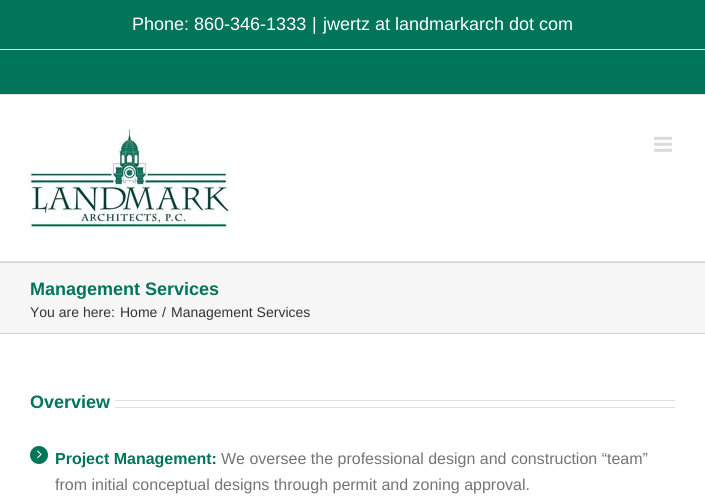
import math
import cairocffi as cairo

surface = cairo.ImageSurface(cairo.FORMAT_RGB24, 705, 502)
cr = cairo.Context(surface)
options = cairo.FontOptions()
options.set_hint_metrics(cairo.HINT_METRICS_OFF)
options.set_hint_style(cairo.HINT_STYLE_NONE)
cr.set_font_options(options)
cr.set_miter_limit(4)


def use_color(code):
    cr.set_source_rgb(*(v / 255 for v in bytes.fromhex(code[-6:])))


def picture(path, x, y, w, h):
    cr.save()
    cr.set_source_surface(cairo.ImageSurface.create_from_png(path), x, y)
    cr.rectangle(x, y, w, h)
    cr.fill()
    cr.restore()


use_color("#ffffff")
cr.paint()
use_color("#00755a")
cr.rectangle(0, 0, 705, 94)
cr.fill()
use_color("#e1e1e1")
cr.rectangle(0, 94, 705, 1)
cr.fill()
cr.rectangle(0, 49, 705, 1)
cr.fill()
cr.select_font_face("Liberation Sans")
cr.set_font_size(18)
use_color("#ffffff")
cr.move_to(132, 30)
cr.show_text("Phone: 860-346-1333")
cr.move_to(312, 30)
cr.show_text("|")
cr.move_to(323, 30)
cr.show_text("jwertz at landmarkarch dot com")
use_color("#e1e1e1")
cr.rectangle(0, 261, 705, 1)
cr.fill()
picture("img1.png", 30, 129, 200, 98)
picture("img2.png", 654, 136, 18, 16)
use_color("#f6f6f6")
cr.rectangle(0, 263, 705, 70)
cr.fill()
use_color("#d2d3d4")
cr.rectangle(0, 262, 705, 1)
cr.fill()
cr.rectangle(0, 333, 705, 1)
cr.fill()
cr.select_font_face("Liberation Sans", cairo.FONT_SLANT_NORMAL, cairo.FONT_WEIGHT_BOLD)
use_color("#00755a")
cr.move_to(30, 295)
cr.show_text("Management Services")
cr.select_font_face("Liberation Sans")
cr.set_font_size(14)
use_color("#333333")
cr.move_to(30, 317)
cr.show_text("You are here:")
cr.move_to(120, 317)
cr.show_text("Home")
cr.move_to(162, 317)
cr.show_text("/")
cr.move_to(171, 317)
cr.show_text("Management Services")
cr.select_font_face("Liberation Sans", cairo.FONT_SLANT_NORMAL, cairo.FONT_WEIGHT_BOLD)
cr.set_font_size(18)
use_color("#00755a")
cr.move_to(30, 408)
cr.show_text("Overview")
use_color("#e0dede")
cr.rectangle(115, 400, 560, 1)
cr.fill()
cr.rectangle(115, 407, 560, 1)
cr.fill()
use_color("#00755a")
cr.arc(39, 455, 9, 0, 2 * math.pi)
cr.fill()
picture("img3.png", 37, 450, 5, 9)
cr.set_font_size(16)
cr.move_to(55, 464)
cr.show_text("Project Management:")
cr.select_font_face("Liberation Sans")
use_color("#747474")
cr.move_to(221, 464)
cr.show_text("We oversee the professional design and construction “team”")
cr.move_to(55, 490)
cr.show_text("from initial conceptual designs through permit and zoning approval.")
surface.write_to_png("result.png")
